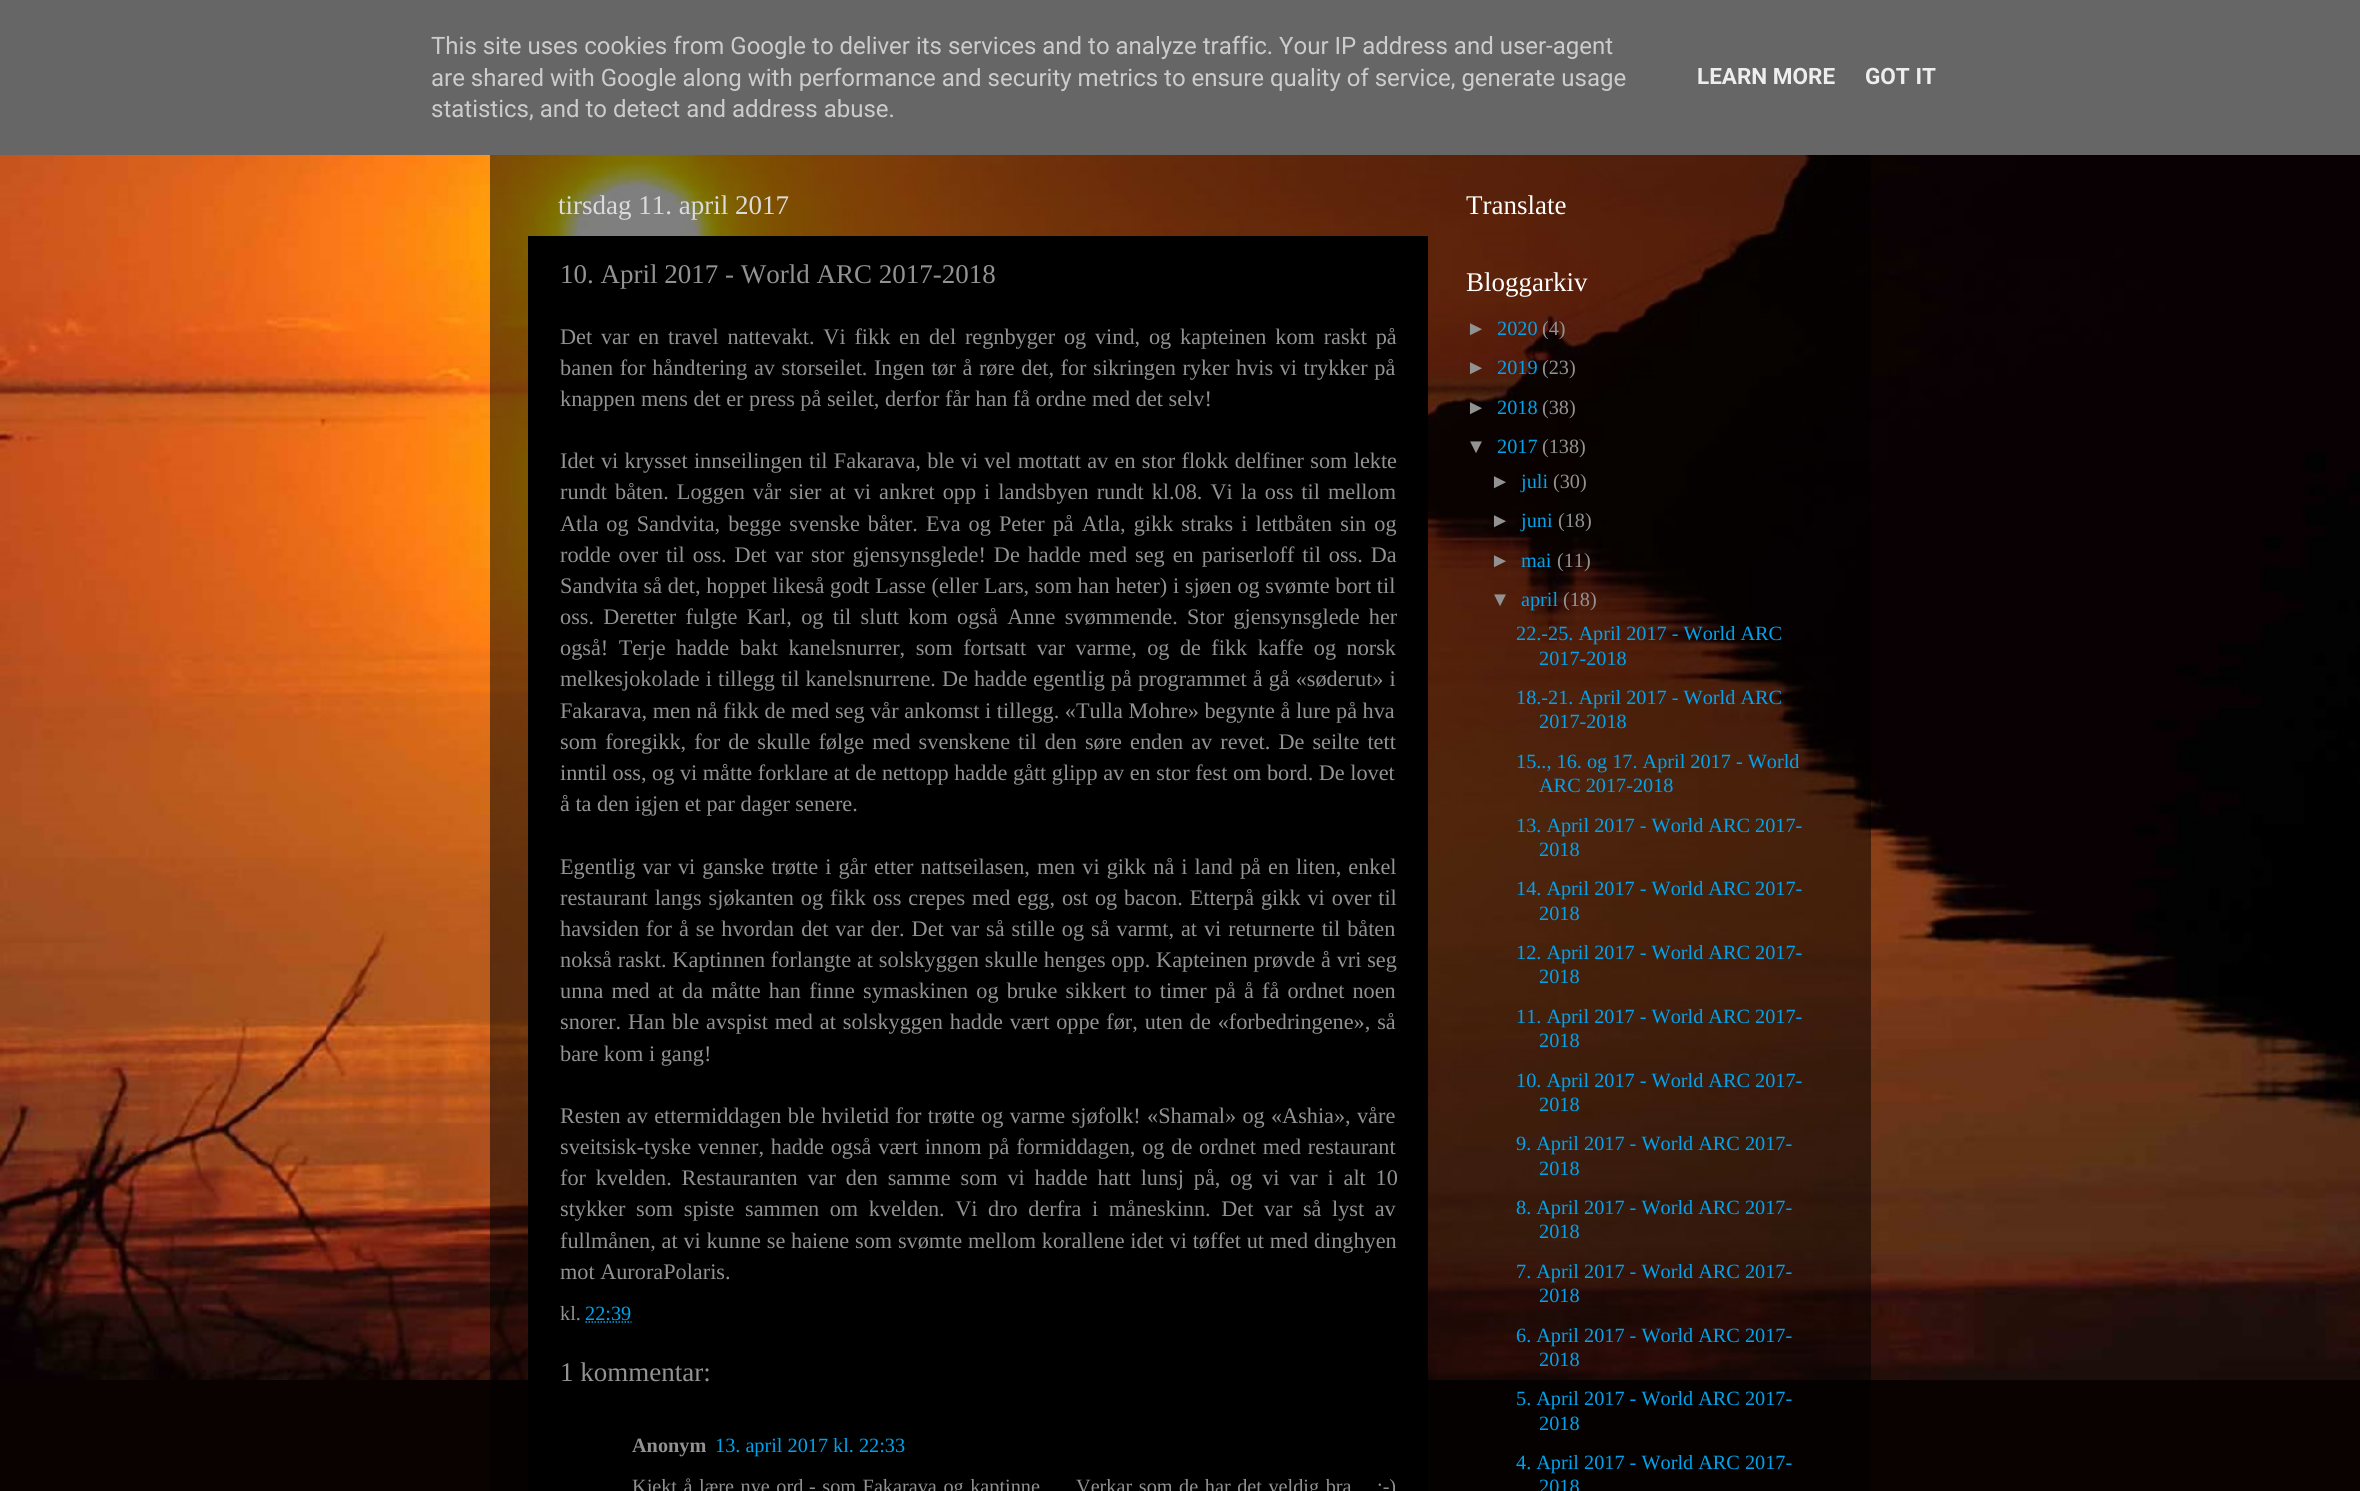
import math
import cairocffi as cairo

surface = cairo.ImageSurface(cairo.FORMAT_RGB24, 2360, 1491)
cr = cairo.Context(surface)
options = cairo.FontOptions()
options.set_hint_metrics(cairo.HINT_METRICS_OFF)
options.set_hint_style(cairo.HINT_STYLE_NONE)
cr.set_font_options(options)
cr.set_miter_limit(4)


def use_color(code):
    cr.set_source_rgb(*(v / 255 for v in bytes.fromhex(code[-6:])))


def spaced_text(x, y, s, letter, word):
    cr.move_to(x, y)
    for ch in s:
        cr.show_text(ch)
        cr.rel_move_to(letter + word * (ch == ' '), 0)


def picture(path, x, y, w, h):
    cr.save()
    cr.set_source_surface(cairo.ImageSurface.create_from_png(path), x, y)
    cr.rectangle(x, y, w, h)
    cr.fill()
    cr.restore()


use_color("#0a0200")
cr.paint()
picture("img1.png", 0, 155, 2360, 1225)
use_color("#666666")
cr.rectangle(0, 0, 2360, 155)
cr.fill()
cr.select_font_face("Roboto")
cr.set_font_size(24)
use_color("#cccccc")
cr.move_to(431, 54)
cr.show_text("This site uses cookies from Google to deliver its services and to analyze traffic. Your IP address and user-agent")
cr.move_to(431, 86)
cr.show_text("are shared with Google along with performance and security metrics to ensure quality of service, generate usage")
cr.move_to(431, 117)
cr.show_text("statistics, and to detect and address abuse.")
cr.select_font_face("Roboto", cairo.FONT_SLANT_NORMAL, cairo.FONT_WEIGHT_BOLD)
cr.set_font_size(22.5)
use_color("#eeeeee")
cr.move_to(1697, 84)
cr.show_text("LEARN MORE")
cr.move_to(1865, 84)
cr.show_text("GOT IT")
cr.set_source_rgba(0, 0, 0, 0.5)
cr.rectangle(490, 155, 1381, 1336)
cr.fill()
cr.select_font_face("Liberation Serif")
cr.set_font_size(27)
use_color("#dbdbdb")
cr.move_to(558, 214)
cr.show_text("tirsdag 11. april 2017")
use_color("#000000")
cr.rectangle(528, 236, 900, 1255)
cr.fill()
use_color("#929292")
cr.move_to(560, 283)
cr.show_text("10. April 2017 - World ARC 2017-2018")
cr.set_font_size(22.25)
spaced_text(560, 344, "Det var en travel nattevakt. Vi fikk en del regnbyger og vind, og kapteinen kom raskt på", 0, 3.25)
spaced_text(560, 375, "banen for håndtering av storseilet. Ingen tør å røre det, for sikringen ryker hvis vi trykker på", 0, 1)
cr.move_to(560, 406)
cr.show_text("knappen mens det er press på seilet, derfor får han få ordne med det selv!")
spaced_text(560, 468, "Idet vi krysset innseilingen til Fakarava, ble vi vel mottatt av en stor flokk delfiner som lekte", 0, 0.75)
spaced_text(560, 499, "rundt båten. Loggen vår sier at vi ankret opp i landsbyen rundt kl.08. Vi la oss til mellom", 0, 2.5)
spaced_text(560, 531, "Atla og Sandvita, begge svenske båter. Eva og Peter på Atla, gikk straks i lettbåten sin og", 0, 2.5)
spaced_text(560, 562, "rodde over til oss. Det var stor gjensynsglede! De hadde med seg en pariserloff til oss. Da", 0, 2.4)
spaced_text(560, 593, "Sandvita så det, hoppet likeså godt Lasse (eller Lars, som han heter) i sjøen og svømte bort til", 0, 0.1)
spaced_text(560, 624, "oss. Deretter fulgte Karl, og til slutt kom også Anne svømmende. Stor gjensynsglede her", 0, 3.75)
spaced_text(560, 655, "også! Terje hadde bakt kanelsnurrer, som fortsatt var varme, og de fikk kaffe og norsk", 0, 4.9)
spaced_text(560, 686, "melkesjokolade i tillegg til kanelsnurrene. De hadde egentlig på programmet å gå «søderut» i", 0, 0.5)
cr.move_to(560, 718)
cr.show_text("Fakarava, men nå fikk de med seg vår ankomst i tillegg. «Tulla Mohre» begynte å lure på hva")
spaced_text(560, 749, "som foregikk, for de skulle følge med svenskene til den søre enden av revet. De seilte tett", 0, 2.5)
cr.move_to(560, 780)
cr.show_text("inntil oss, og vi måtte forklare at de nettopp hadde gått glipp av en stor fest om bord. De lovet")
cr.move_to(560, 811)
cr.show_text("å ta den igjen et par dager senere.")
spaced_text(560, 874, "Egentlig var vi ganske trøtte i går etter nattseilasen, men vi gikk nå i land på en liten, enkel", 0, 1.5)
spaced_text(560, 905, "restaurant langs sjøkanten og fikk oss crepes med egg, ost og bacon. Etterpå gikk vi over til", 0, 1.4)
spaced_text(560, 936, "havsiden for å se hvordan det var der. Det var så stille og så varmt, at vi returnerte til båten", 0, 1.4)
spaced_text(560, 967, "nokså raskt. Kaptinnen forlangte at solskyggen skulle henges opp. Kapteinen prøvde å vri seg", 0, 0.25)
spaced_text(560, 998, "unna med at da måtte han finne symaskinen og bruke sikkert to timer på å få ordnet noen", 0, 2.6)
spaced_text(560, 1029, "snorer. Han ble avspist med at solskyggen hadde vært oppe før, uten de «forbedringene», så", 0, 1.3)
cr.move_to(560, 1061)
cr.show_text("bare kom i gang!")
spaced_text(560, 1123, "Resten av ettermiddagen ble hviletid for trøtte og varme sjøfolk! «Shamal» og «Ashia», våre", 0, 0.75)
spaced_text(560, 1154, "sveitsisk-tyske venner, hadde også vært innom på formiddagen, og de ordnet med restaurant", 0, 1.25)
spaced_text(560, 1185, "for kvelden. Restauranten var den samme som vi hadde hatt lunsj på, og vi var i alt 10", 0, 4.25)
spaced_text(560, 1216, "stykker som spiste sammen om kvelden. Vi dro derfra i måneskinn. Det var så lyst av", 0, 5)
spaced_text(560, 1248, "fullmånen, at vi kunne se haiene som svømte mellom korallene idet vi tøffet ut med dinghyen", 0, 0.25)
cr.move_to(560, 1279)
cr.show_text("mot AuroraPolaris.")
cr.set_font_size(20.25)
cr.move_to(560, 1320)
cr.show_text("kl.")
use_color("#00a3ec")
cr.move_to(585, 1320)
cr.show_text("22:39")
cr.new_path()
cr.move_to(585.5, 1322)
cr.line_to(631.5, 1322)
cr.set_line_width(1.5)
cr.set_dash([1.5, 1.5])
cr.stroke()
cr.set_font_size(27)
use_color("#929292")
cr.move_to(560, 1381)
cr.show_text("1 kommentar:")
cr.select_font_face("Liberation Serif", cairo.FONT_SLANT_NORMAL, cairo.FONT_WEIGHT_BOLD)
cr.set_font_size(20.25)
cr.move_to(632, 1452)
cr.show_text("Anonym")
cr.select_font_face("Liberation Serif")
use_color("#00a3ec")
cr.move_to(715, 1452)
cr.show_text("13. april 2017 kl. 22:33")
use_color("#929292")
spaced_text(632, 1493, "Kjekt å lære nye ord", 0, 1.5)
spaced_text(809, 1493, "- som Fakarava og kaptinne", 0, 1.5)
spaced_text(1076, 1493, "Verkar som de har det veldig bra", 0, 1.5)
spaced_text(1377, 1493, ":-)", 0, 1.5)
cr.set_font_size(27)
use_color("#ffffff")
cr.move_to(1466, 214)
cr.show_text("Translate")
cr.move_to(1466, 291)
cr.show_text("Bloggarkiv")
cr.select_font_face("Liberation Sans")
cr.set_font_size(20.25)
use_color("#929292")
cr.move_to(1466, 335)
cr.show_text("►")
cr.select_font_face("Liberation Serif")
use_color("#00a3ec")
cr.move_to(1497, 335)
cr.show_text("2020")
use_color("#929292")
cr.move_to(1542, 335)
cr.show_text("(4)")
cr.select_font_face("Liberation Sans")
cr.move_to(1466, 374)
cr.show_text("►")
cr.select_font_face("Liberation Serif")
use_color("#00a3ec")
cr.move_to(1497, 374)
cr.show_text("2019")
use_color("#929292")
cr.move_to(1542, 374)
cr.show_text("(23)")
cr.select_font_face("Liberation Sans")
cr.move_to(1466, 414)
cr.show_text("►")
cr.select_font_face("Liberation Serif")
use_color("#00a3ec")
cr.move_to(1497, 414)
cr.show_text("2018")
use_color("#929292")
cr.move_to(1542, 414)
cr.show_text("(38)")
cr.select_font_face("Liberation Sans")
cr.move_to(1466, 453)
cr.show_text("▼")
cr.select_font_face("Liberation Serif")
use_color("#00a3ec")
cr.move_to(1497, 453)
cr.show_text("2017")
use_color("#929292")
cr.move_to(1542, 453)
cr.show_text("(138)")
cr.select_font_face("Liberation Sans")
cr.move_to(1490, 488)
cr.show_text("►")
cr.select_font_face("Liberation Serif")
use_color("#00a3ec")
cr.move_to(1521, 488)
cr.show_text("juli")
use_color("#929292")
cr.move_to(1553, 488)
cr.show_text("(30)")
cr.select_font_face("Liberation Sans")
cr.move_to(1490, 527)
cr.show_text("►")
cr.select_font_face("Liberation Serif")
use_color("#00a3ec")
cr.move_to(1521, 527)
cr.show_text("juni")
use_color("#929292")
cr.move_to(1558, 527)
cr.show_text("(18)")
cr.select_font_face("Liberation Sans")
cr.move_to(1490, 567)
cr.show_text("►")
cr.select_font_face("Liberation Serif")
use_color("#00a3ec")
cr.move_to(1521, 567)
cr.show_text("mai")
use_color("#929292")
cr.move_to(1557, 567)
cr.show_text("(11)")
cr.select_font_face("Liberation Sans")
cr.move_to(1490, 606)
cr.show_text("▼")
cr.select_font_face("Liberation Serif")
use_color("#00a3ec")
cr.move_to(1521, 606)
cr.show_text("april")
use_color("#929292")
cr.move_to(1563, 606)
cr.show_text("(18)")
use_color("#00a3ec")
cr.move_to(1516, 640)
cr.show_text("22.-25. April 2017 - World ARC")
cr.move_to(1539, 665)
cr.show_text("2017-2018")
cr.move_to(1516, 704)
cr.show_text("18.-21. April 2017 - World ARC")
cr.move_to(1539, 728)
cr.show_text("2017-2018")
cr.move_to(1516, 768)
cr.show_text("15.., 16. og 17. April 2017 - World")
cr.move_to(1539, 792)
cr.show_text("ARC 2017-2018")
cr.move_to(1516, 832)
cr.show_text("13. April 2017 - World ARC 2017-")
cr.move_to(1539, 856)
cr.show_text("2018")
cr.move_to(1516, 895)
cr.show_text("14. April 2017 - World ARC 2017-")
cr.move_to(1539, 920)
cr.show_text("2018")
cr.move_to(1516, 959)
cr.show_text("12. April 2017 - World ARC 2017-")
cr.move_to(1539, 983)
cr.show_text("2018")
cr.move_to(1516, 1023)
cr.show_text("11. April 2017 - World ARC 2017-")
cr.move_to(1539, 1047)
cr.show_text("2018")
cr.move_to(1516, 1087)
cr.show_text("10. April 2017 - World ARC 2017-")
cr.move_to(1539, 1111)
cr.show_text("2018")
cr.move_to(1516, 1150)
cr.show_text("9. April 2017 - World ARC 2017-")
cr.move_to(1539, 1175)
cr.show_text("2018")
cr.move_to(1516, 1214)
cr.show_text("8. April 2017 - World ARC 2017-")
cr.move_to(1539, 1238)
cr.show_text("2018")
cr.move_to(1516, 1278)
cr.show_text("7. April 2017 - World ARC 2017-")
cr.move_to(1539, 1302)
cr.show_text("2018")
cr.move_to(1516, 1342)
cr.show_text("6. April 2017 - World ARC 2017-")
cr.move_to(1539, 1366)
cr.show_text("2018")
cr.move_to(1516, 1405)
cr.show_text("5. April 2017 - World ARC 2017-")
cr.move_to(1539, 1430)
cr.show_text("2018")
cr.move_to(1516, 1469)
cr.show_text("4. April 2017 - World ARC 2017-")
cr.move_to(1539, 1493)
cr.show_text("2018")
surface.write_to_png("result.png")
